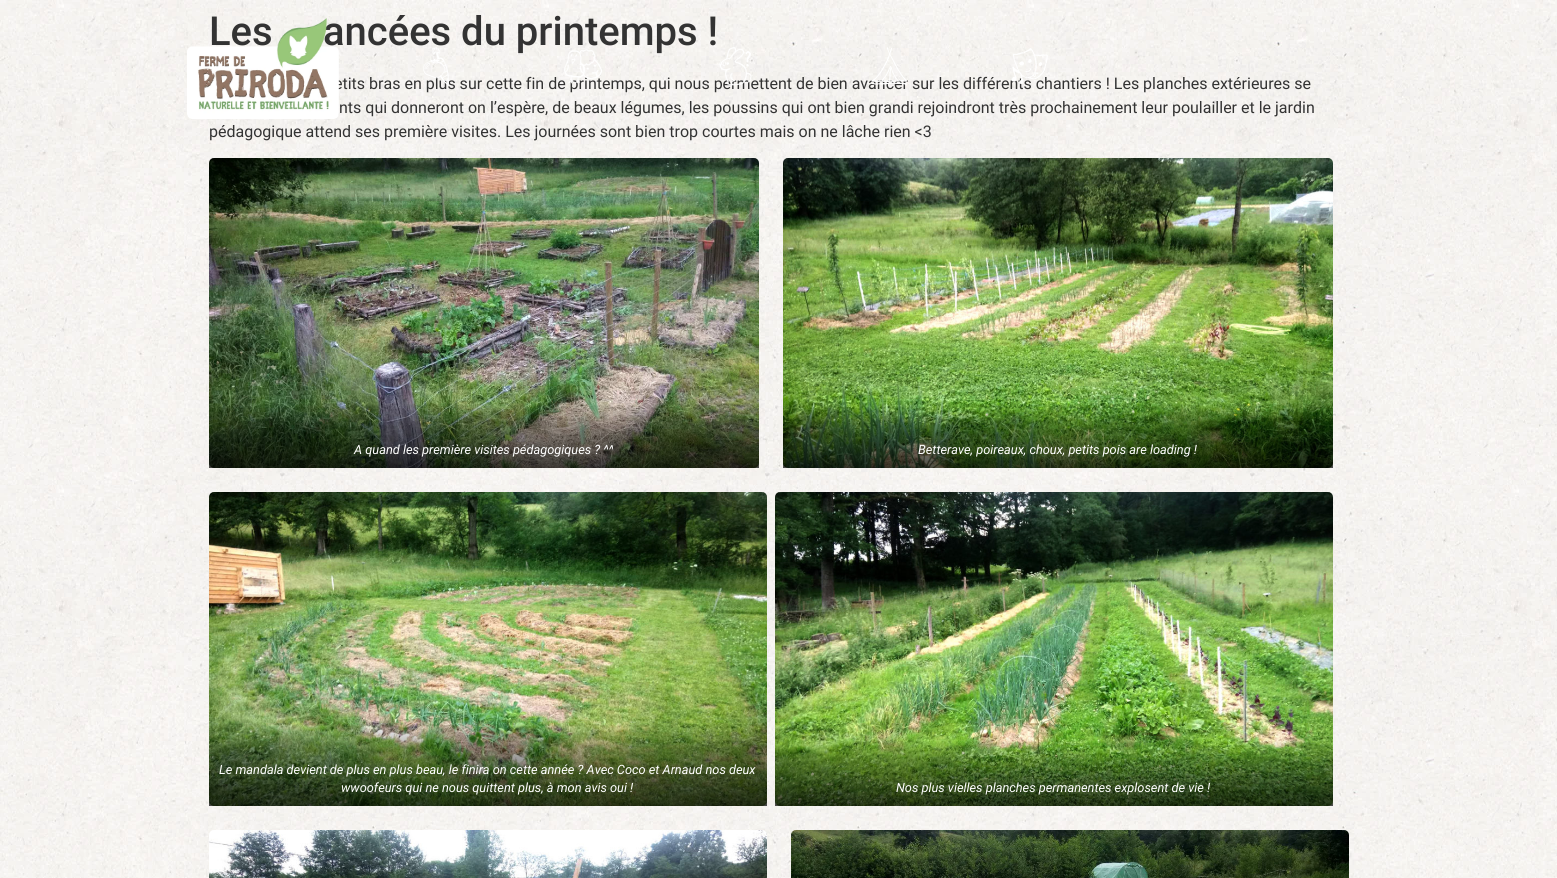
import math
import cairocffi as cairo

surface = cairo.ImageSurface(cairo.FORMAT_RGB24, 1557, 878)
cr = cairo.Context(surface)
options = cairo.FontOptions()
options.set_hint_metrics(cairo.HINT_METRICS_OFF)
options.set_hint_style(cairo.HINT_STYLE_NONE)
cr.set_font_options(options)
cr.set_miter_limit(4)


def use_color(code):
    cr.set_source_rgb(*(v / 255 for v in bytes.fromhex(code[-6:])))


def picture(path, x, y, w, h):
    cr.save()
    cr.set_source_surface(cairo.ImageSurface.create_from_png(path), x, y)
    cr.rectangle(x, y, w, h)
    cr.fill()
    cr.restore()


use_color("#ffffff")
cr.paint()
picture("img1.png", 0, 0, 1557, 878)
cr.select_font_face("Roboto Medium")
cr.set_font_size(40)
use_color("#333333")
cr.move_to(209, 45)
cr.show_text("Les")
cr.move_to(323, 45)
cr.show_text("ancées du printemps !")
cr.select_font_face("Roboto")
cr.set_font_size(16)
cr.move_to(334, 89)
cr.show_text("etits bras en plus sur cette fin de printemps, qui nous permettent de bien avancer sur les différents chantiers ! Les planches extérieures se")
cr.move_to(339, 113)
cr.show_text("nts qui donneront on l’espère, de beaux légumes, les poussins qui ont bien grandi rejoindront très prochainement leur poulailler et le jardin")
cr.move_to(209, 137)
cr.show_text("pédagogique attend ses première visites. Les journées sont bien trop courtes mais on ne lâche rien <3")
picture("img2.png", 209, 158, 550, 310)
gradient = cairo.LinearGradient(484, 468, 484, 403)
gradient.add_color_stop_rgba(0, 0, 0, 0, 0.7)
gradient.add_color_stop_rgba(0.7, 0, 0, 0, 0.3)
gradient.add_color_stop_rgba(1, 0, 0, 0, 0)
cr.set_source(gradient)
cr.rectangle(209, 404, 550, 64)
cr.fill()
cr.select_font_face("Roboto", cairo.FONT_SLANT_ITALIC)
cr.set_font_size(12.8)
use_color("#ffffff")
cr.move_to(354, 454)
cr.show_text("A quand les première visites pédagogiques ? ^^")
picture("img3.png", 783, 158, 550, 310)
gradient = cairo.LinearGradient(1058, 468, 1058, 403)
gradient.add_color_stop_rgba(0, 0, 0, 0, 0.7)
gradient.add_color_stop_rgba(0.7, 0, 0, 0, 0.3)
gradient.add_color_stop_rgba(1, 0, 0, 0, 0)
cr.set_source(gradient)
cr.rectangle(783, 404, 550, 64)
cr.fill()
use_color("#ffffff")
cr.move_to(918, 454)
cr.show_text("Betterave, poireaux, choux, petits pois are loading !")
picture("img4.png", 209, 492, 558, 314)
gradient = cairo.LinearGradient(488, 806, 488, 722)
gradient.add_color_stop_rgba(0, 0, 0, 0, 0.7)
gradient.add_color_stop_rgba(0.7, 0, 0, 0, 0.3)
gradient.add_color_stop_rgba(1, 0, 0, 0, 0)
cr.set_source(gradient)
cr.rectangle(209, 724, 558, 82)
cr.fill()
use_color("#ffffff")
cr.move_to(219, 774)
cr.show_text("Le mandala devient de plus en plus beau, le finira on cette année ? Avec Coco et Arnaud nos deux")
cr.move_to(341, 792)
cr.show_text("wwoofeurs qui ne nous quittent plus, à mon avis oui !")
picture("img5.png", 775, 492, 558, 314)
gradient = cairo.LinearGradient(1054, 806, 1054, 740)
gradient.add_color_stop_rgba(0, 0, 0, 0, 0.7)
gradient.add_color_stop_rgba(0.7, 0, 0, 0, 0.3)
gradient.add_color_stop_rgba(1, 0, 0, 0, 0)
cr.set_source(gradient)
cr.rectangle(775, 741, 558, 65)
cr.fill()
use_color("#ffffff")
cr.move_to(896, 792)
cr.show_text("Nos plus vielles planches permanentes explosent de vie !")
picture("img6.png", 209, 830, 558, 48)
picture("img7.png", 791, 830, 558, 48)
picture("img8.png", 187, 18, 152, 101)
picture("img9.png", 423, 47, 26, 38)
picture("img10.png", 564, 49, 38, 35)
picture("img11.png", 719, 47, 33, 39)
picture("img12.png", 871, 47, 36, 38)
picture("img13.png", 1011, 48, 37, 36)
surface.write_to_png("result.png")
